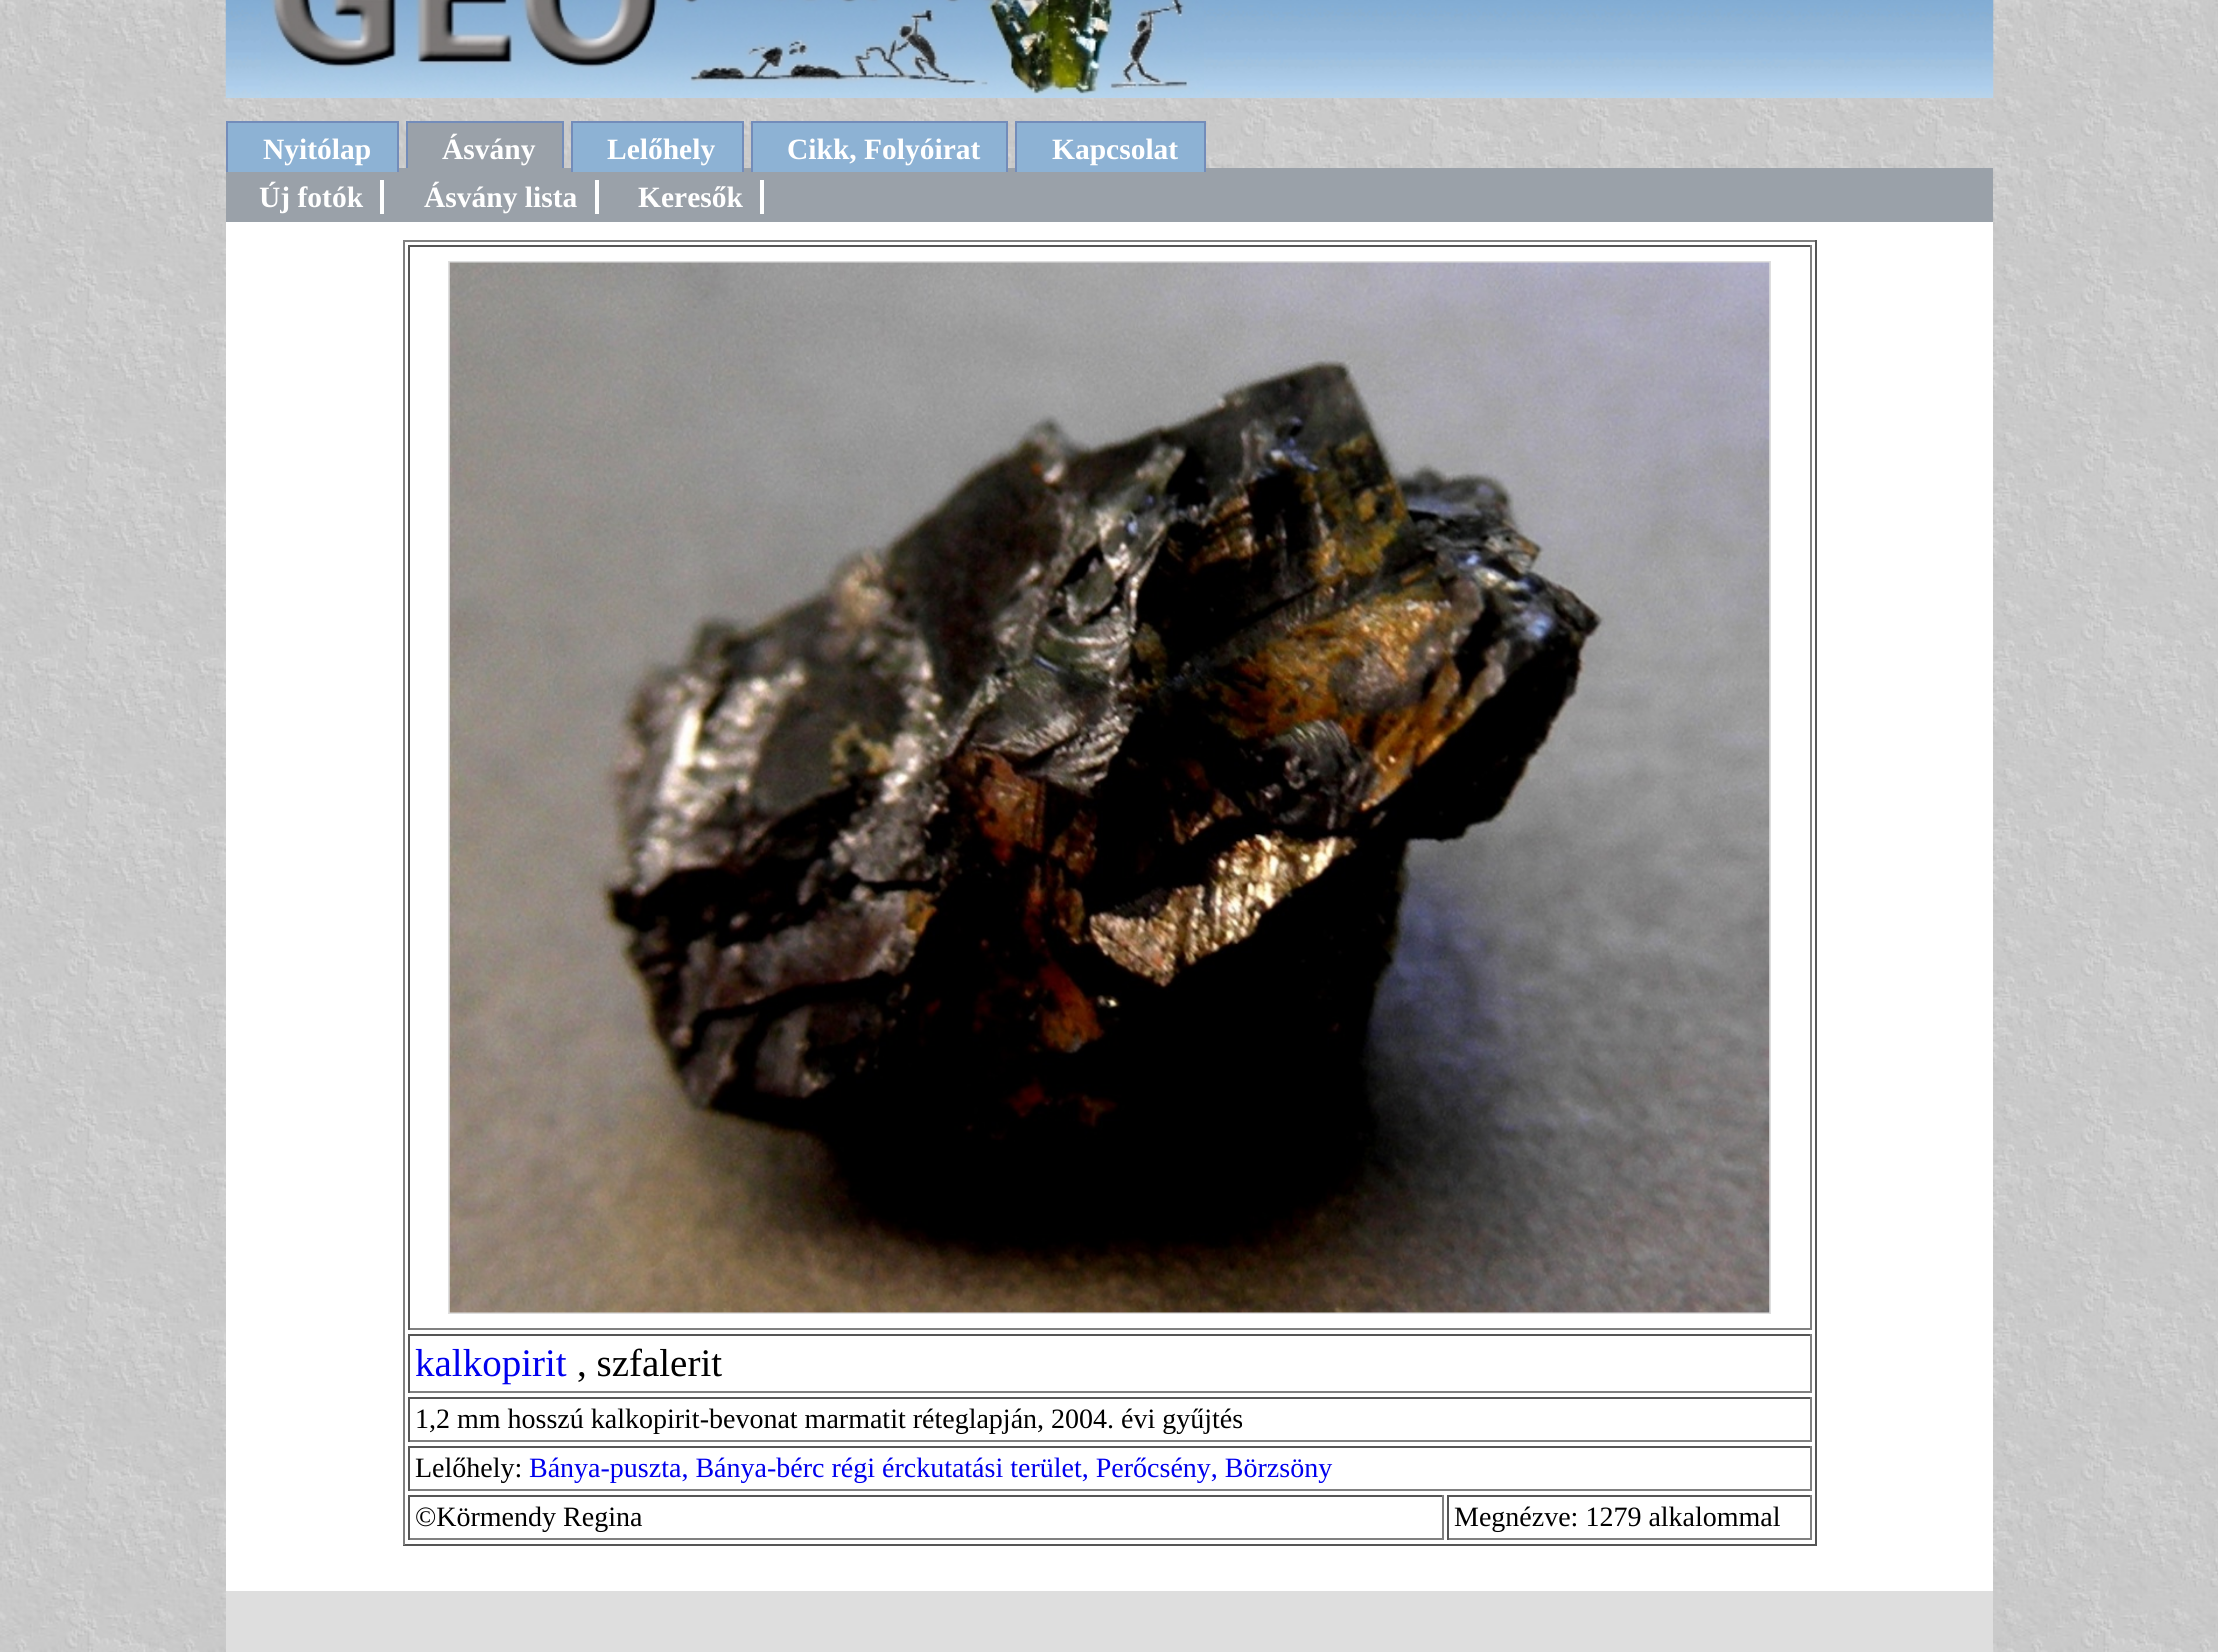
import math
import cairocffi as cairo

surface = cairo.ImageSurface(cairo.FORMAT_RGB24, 2218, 1652)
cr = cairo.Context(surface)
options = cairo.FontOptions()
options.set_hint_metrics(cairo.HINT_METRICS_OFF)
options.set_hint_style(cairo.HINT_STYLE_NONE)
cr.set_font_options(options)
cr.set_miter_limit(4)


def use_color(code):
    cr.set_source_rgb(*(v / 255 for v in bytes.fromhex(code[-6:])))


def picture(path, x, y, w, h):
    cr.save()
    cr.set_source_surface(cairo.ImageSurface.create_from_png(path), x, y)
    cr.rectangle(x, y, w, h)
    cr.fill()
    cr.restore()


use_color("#ffffff")
cr.paint()
picture("img1.png", 0, 0, 2218, 1652)
picture("img2.png", 225, 0, 1769, 98)
picture("img3.png", 261, 0, 943, 98)
use_color("#9aa1a9")
cr.rectangle(226, 168, 1767, 54)
cr.fill()
use_color("#8db2d4")
cr.rectangle(228, 123, 169, 49)
cr.fill()
cr.select_font_face("Liberation Serif", cairo.FONT_SLANT_NORMAL, cairo.FONT_WEIGHT_BOLD)
cr.set_font_size(29.5)
use_color("#ffffff")
cr.move_to(263, 159)
cr.show_text("Nyitólap")
use_color("#738cba")
cr.rectangle(226, 121, 173, 2)
cr.fill()
cr.rectangle(397, 121, 2, 51)
cr.fill()
cr.rectangle(226, 121, 2, 51)
cr.fill()
use_color("#9aa1a9")
cr.rectangle(408, 123, 154, 45)
cr.fill()
use_color("#ffffff")
cr.move_to(442, 159)
cr.show_text("Ásvány")
use_color("#738cba")
cr.rectangle(406, 121, 158, 2)
cr.fill()
cr.rectangle(562, 121, 2, 47)
cr.fill()
cr.rectangle(406, 121, 2, 47)
cr.fill()
use_color("#8db2d4")
cr.rectangle(573, 123, 169, 49)
cr.fill()
use_color("#ffffff")
cr.move_to(607, 159)
cr.show_text("Lelőhely")
use_color("#738cba")
cr.rectangle(571, 121, 173, 2)
cr.fill()
cr.rectangle(742, 121, 2, 51)
cr.fill()
cr.rectangle(571, 121, 2, 51)
cr.fill()
use_color("#8db2d4")
cr.rectangle(753, 123, 253, 49)
cr.fill()
use_color("#ffffff")
cr.move_to(787, 159)
cr.show_text("Cikk, Folyóirat")
use_color("#738cba")
cr.rectangle(751, 121, 257, 2)
cr.fill()
cr.rectangle(1006, 121, 2, 51)
cr.fill()
cr.rectangle(751, 121, 2, 51)
cr.fill()
use_color("#8db2d4")
cr.rectangle(1017, 123, 187, 49)
cr.fill()
use_color("#ffffff")
cr.move_to(1052, 159)
cr.show_text("Kapcsolat")
use_color("#738cba")
cr.rectangle(1015, 121, 191, 2)
cr.fill()
cr.rectangle(1204, 121, 2, 51)
cr.fill()
cr.rectangle(1015, 121, 2, 51)
cr.fill()
use_color("#ffffff")
cr.rectangle(226, 222, 1767, 1369)
cr.fill()
cr.move_to(259, 207)
cr.show_text("Új fotók")
cr.rectangle(380, 180, 4, 34)
cr.fill()
cr.move_to(424, 207)
cr.show_text("Ásvány lista")
cr.rectangle(595, 180, 4, 34)
cr.fill()
cr.move_to(638, 207)
cr.show_text("Keresők")
cr.rectangle(760, 180, 4, 34)
cr.fill()
use_color("#808080")
cr.rectangle(403, 240, 1414, 2)
cr.fill()
use_color("#555555")
cr.rectangle(1815, 240, 2, 1305)
cr.fill()
cr.rectangle(403, 1544, 1414, 2)
cr.fill()
use_color("#808080")
cr.rectangle(403, 240, 2, 1305)
cr.fill()
use_color("#555555")
cr.rectangle(408, 245, 1403, 2)
cr.fill()
use_color("#808080")
cr.rectangle(1810, 245, 2, 1085)
cr.fill()
cr.rectangle(408, 1328, 1403, 2)
cr.fill()
use_color("#555555")
cr.rectangle(408, 245, 2, 1085)
cr.fill()
cr.rectangle(449, 262, 1321, 1051)
use_color("#dedede")
cr.stroke()
picture("img4.png", 449, 262, 1321, 1051)
use_color("#555555")
cr.rectangle(408, 1334, 1403, 2)
cr.fill()
use_color("#808080")
cr.rectangle(1810, 1334, 2, 59)
cr.fill()
cr.rectangle(408, 1391, 1403, 2)
cr.fill()
use_color("#555555")
cr.rectangle(408, 1334, 2, 59)
cr.fill()
cr.select_font_face("Liberation Serif")
cr.set_font_size(39)
use_color("#0000ee")
cr.move_to(415, 1376)
cr.show_text("kalkopirit")
use_color("#000000")
cr.move_to(577, 1376)
cr.show_text(", szfalerit")
use_color("#555555")
cr.rectangle(408, 1397, 1403, 2)
cr.fill()
use_color("#808080")
cr.rectangle(1810, 1397, 2, 45)
cr.fill()
cr.rectangle(408, 1440, 1403, 2)
cr.fill()
use_color("#555555")
cr.rectangle(408, 1397, 2, 45)
cr.fill()
cr.set_font_size(28)
use_color("#000000")
cr.move_to(415, 1428)
cr.show_text("1,2 mm hosszú kalkopirit-bevonat marmatit réteglapján, 2004. évi gyűjtés")
use_color("#555555")
cr.rectangle(408, 1446, 1403, 2)
cr.fill()
use_color("#808080")
cr.rectangle(1810, 1446, 2, 45)
cr.fill()
cr.rectangle(408, 1489, 1403, 2)
cr.fill()
use_color("#555555")
cr.rectangle(408, 1446, 2, 45)
cr.fill()
use_color("#000000")
cr.move_to(415, 1477)
cr.show_text("Lelőhely:")
use_color("#0000ee")
cr.move_to(529, 1477)
cr.show_text("Bánya-puszta, Bánya-bérc régi érckutatási terület, Perőcsény, Börzsöny")
use_color("#555555")
cr.rectangle(408, 1495, 1036, 2)
cr.fill()
use_color("#808080")
cr.rectangle(1442, 1495, 2, 45)
cr.fill()
cr.rectangle(408, 1538, 1036, 2)
cr.fill()
use_color("#555555")
cr.rectangle(408, 1495, 2, 45)
cr.fill()
use_color("#000000")
cr.move_to(415, 1526)
cr.show_text("©Körmendy Regina")
use_color("#555555")
cr.rectangle(1447, 1495, 364, 2)
cr.fill()
use_color("#808080")
cr.rectangle(1810, 1495, 2, 45)
cr.fill()
cr.rectangle(1447, 1538, 364, 2)
cr.fill()
use_color("#555555")
cr.rectangle(1447, 1495, 2, 45)
cr.fill()
use_color("#000000")
cr.move_to(1454, 1526)
cr.show_text("Megnézve: 1279 alkalommal")
use_color("#dedede")
cr.rectangle(226, 1591, 1767, 61)
cr.fill()
surface.write_to_png("result.png")
